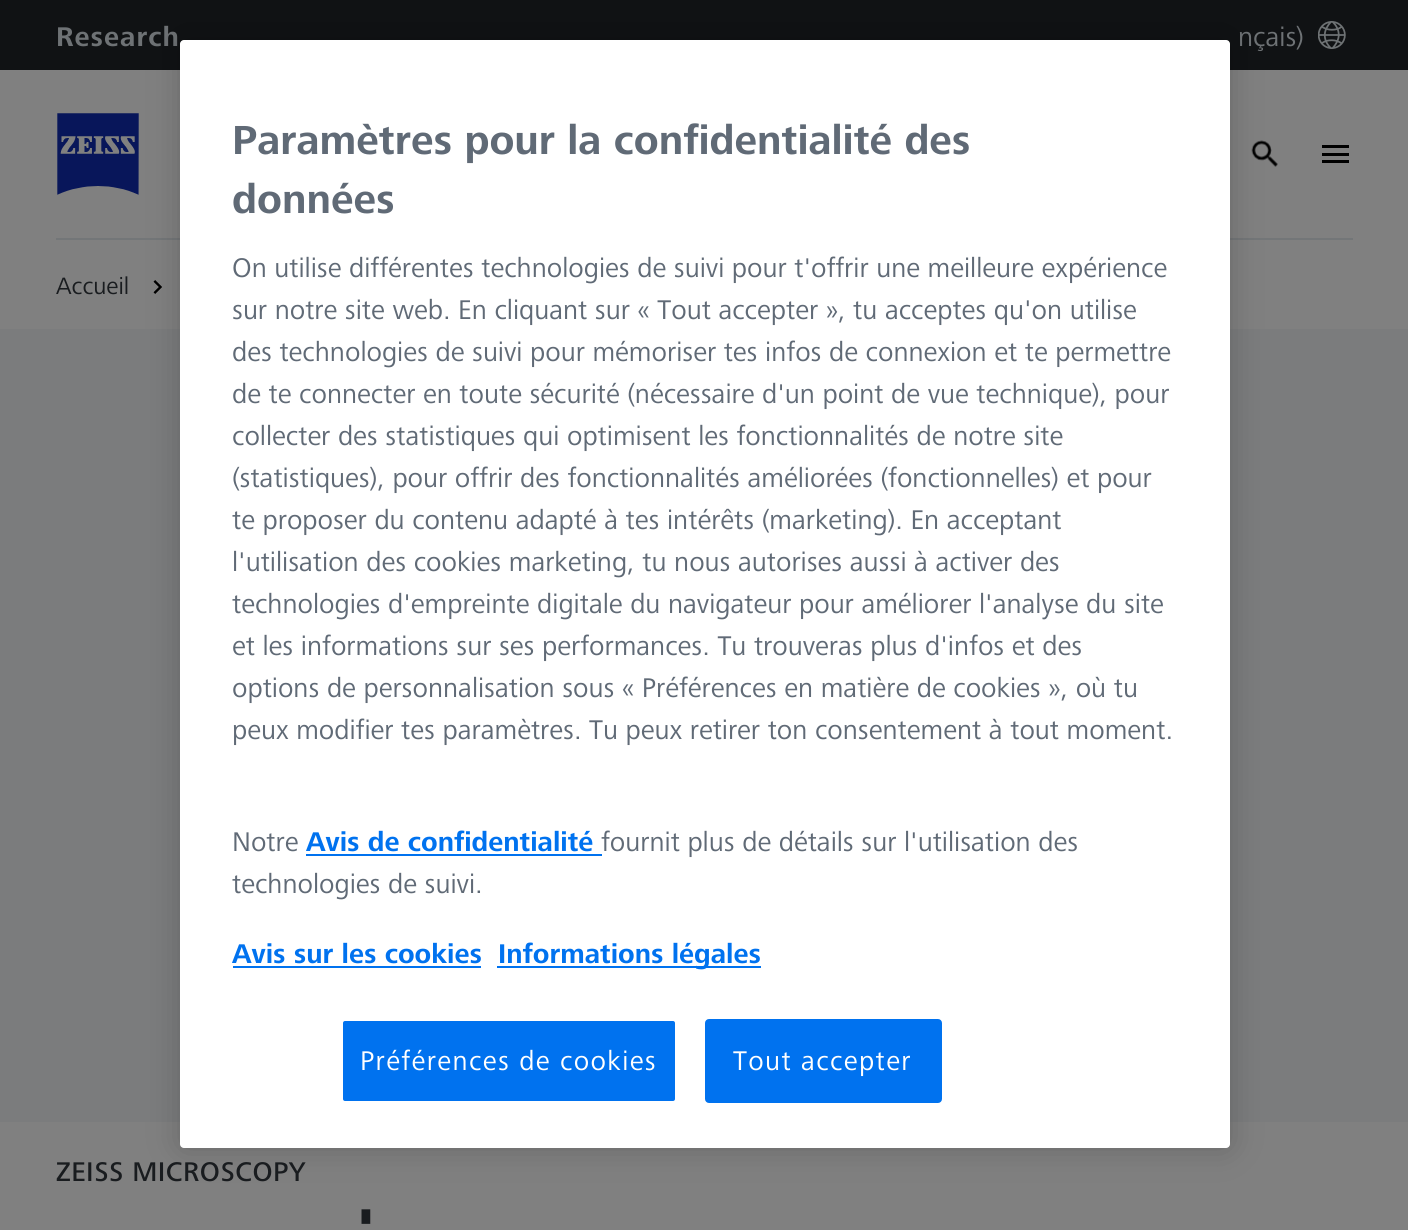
import math
import cairocffi as cairo

surface = cairo.ImageSurface(cairo.FORMAT_RGB24, 1408, 1230)
cr = cairo.Context(surface)
options = cairo.FontOptions()
options.set_hint_metrics(cairo.HINT_METRICS_OFF)
options.set_hint_style(cairo.HINT_STYLE_NONE)
cr.set_font_options(options)
cr.set_miter_limit(4)


def use_color(code):
    cr.set_source_rgb(*(v / 255 for v in bytes.fromhex(code[-6:])))


def spaced_text(x, y, s, letter, word):
    cr.move_to(x, y)
    for ch in s:
        cr.show_text(ch)
        cr.rel_move_to(letter + word * (ch == ' '), 0)


def round_rect(x, y, w, h, r):
    cr.new_sub_path()
    for i, (u, v) in enumerate([(x + w - r, y + h - r), (x + r, y + h - r), (x + r, y + r), (x + w - r, y + r)]):
        cr.arc(u, v, r, i * math.pi / 2, (i + 1) * math.pi / 2)
    cr.close_path()


def shadow(x, y, w, h, r, blur, alpha):
    cr.push_group_with_content(cairo.CONTENT_ALPHA)
    cr.set_operator(cairo.OPERATOR_SOURCE)
    for i in range(15, -16, -2):
        e = blur * i / 6
        if min(w, h) + 2 * e > 0:
            cr.set_source_rgba(0, 0, 0, alpha * math.erfc((i - 1) / 8.5) / 2)
            round_rect(x - e, y - e, w + 2 * e, h + 2 * e, max(0, min(r + e + blur * .6, min(w, h) / 2 + e)))
            cr.fill()
    cr.mask(cr.pop_group())


def picture(path, x, y, w, h):
    cr.save()
    cr.set_source_surface(cairo.ImageSurface.create_from_png(path), x, y)
    cr.rectangle(x, y, w, h)
    cr.fill()
    cr.restore()


use_color("#808080")
cr.paint()
use_color("#101214")
cr.rectangle(0, 0, 1408, 70)
cr.fill()
cr.select_font_face("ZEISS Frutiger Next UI", cairo.FONT_SLANT_NORMAL, cairo.FONT_WEIGHT_BOLD)
cr.set_font_size(28)
use_color("#6e7275")
spaced_text(56, 46, "Research", 1, 0)
cr.select_font_face("ZEISS Frutiger Next UI")
cr.move_to(1238, 46)
cr.show_text("nçais)")
picture("img1.png", 1318, 21, 28, 28)
picture("img2.png", 57, 113, 82, 82)
picture("img3.png", 1251, 140, 27, 27)
use_color("#000000")
cr.rectangle(1322, 145, 27, 3)
cr.fill()
cr.rectangle(1322, 153, 27, 3)
cr.fill()
cr.rectangle(1322, 160, 27, 3)
cr.fill()
use_color("#737678")
cr.rectangle(56, 238, 1297, 2)
cr.fill()
cr.set_font_size(24.5)
use_color("#191c1f")
cr.move_to(56, 294)
cr.show_text("Accueil")
picture("img4.png", 153, 280, 9, 14)
use_color("#7b7c7d")
cr.rectangle(0, 329, 1408, 793)
cr.fill()
use_color("#000000")
shadow(180, 40, 1050, 1108, 4, 16, 0.2)
use_color("#ffffff")
round_rect(180, 40, 1050, 1108, 4)
cr.fill()
cr.select_font_face("ZEISS Frutiger Next UI", cairo.FONT_SLANT_NORMAL, cairo.FONT_WEIGHT_BOLD)
cr.set_font_size(42)
use_color("#606a76")
cr.move_to(232, 154)
cr.show_text("Paramètres pour la confidentialité des")
cr.move_to(232, 213)
cr.show_text("données")
cr.select_font_face("ZEISS Frutiger Next UI")
cr.set_font_size(28)
cr.move_to(232, 277)
cr.show_text("On utilise différentes technologies de suivi pour t'offrir une meilleure expérience")
cr.move_to(232, 319)
cr.show_text("sur notre site web. En cliquant sur « Tout accepter », tu acceptes qu'on utilise")
cr.move_to(232, 361)
cr.show_text("des technologies de suivi pour mémoriser tes infos de connexion et te permettre")
cr.move_to(232, 403)
cr.show_text("de te connecter en toute sécurité (nécessaire d'un point de vue technique), pour")
cr.move_to(232, 445)
cr.show_text("collecter des statistiques qui optimisent les fonctionnalités de notre site")
cr.move_to(232, 487)
cr.show_text("(statistiques), pour offrir des fonctionnalités améliorées (fonctionnelles) et pour")
cr.move_to(232, 529)
cr.show_text("te proposer du contenu adapté à tes intérêts (marketing). En acceptant")
cr.move_to(232, 571)
cr.show_text("l'utilisation des cookies marketing, tu nous autorises aussi à activer des")
cr.move_to(232, 613)
cr.show_text("technologies d'empreinte digitale du navigateur pour améliorer l'analyse du site")
cr.move_to(232, 655)
cr.show_text("et les informations sur ses performances. Tu trouveras plus d'infos et des")
cr.move_to(232, 697)
cr.show_text("options de personnalisation sous « Préférences en matière de cookies », où tu")
cr.move_to(232, 739)
cr.show_text("peux modifier tes paramètres. Tu peux retirer ton consentement à tout moment.")
cr.move_to(232, 851)
cr.show_text("Notre")
cr.select_font_face("ZEISS Frutiger Next UI", cairo.FONT_SLANT_NORMAL, cairo.FONT_WEIGHT_BOLD)
use_color("#0072ef")
cr.move_to(306, 851)
cr.show_text("Avis de confidentialité")
cr.rectangle(306, 854, 296, 2)
cr.fill()
cr.select_font_face("ZEISS Frutiger Next UI")
use_color("#606a76")
cr.move_to(601, 851)
cr.show_text("fournit plus de détails sur l'utilisation des")
cr.move_to(232, 893)
cr.show_text("technologies de suivi.")
cr.select_font_face("ZEISS Frutiger Next UI", cairo.FONT_SLANT_NORMAL, cairo.FONT_WEIGHT_BOLD)
use_color("#0072ef")
cr.move_to(232, 963)
cr.show_text("Avis sur les cookies")
cr.rectangle(233, 966, 248, 2)
cr.fill()
cr.rectangle(497, 966, 264, 2)
cr.fill()
cr.move_to(498, 963)
cr.show_text("Informations légales")
round_rect(342, 1020, 334, 82, 3)
cr.fill_preserve()
use_color("#ffffff")
cr.stroke()
cr.select_font_face("ZEISS Frutiger Next UI")
spaced_text(360, 1070, "Préférences de cookies", 1.4, 0)
use_color("#0072ef")
round_rect(706, 1020, 235, 82, 3)
cr.fill_preserve()
cr.stroke()
use_color("#ffffff")
spaced_text(733, 1070, "Tout accepter", 1.4, 0)
cr.select_font_face("ZEISS Frutiger Next UI Medium")
use_color("#191c1f")
spaced_text(56, 1181, "ZEISS MICROSCOPY", 0.5, 0)
cr.select_font_face("ZEISS Frutiger Next UI Black")
cr.set_font_size(70)
spaced_text(355, 1256, "'", 1, 0)
surface.write_to_png("result.png")
